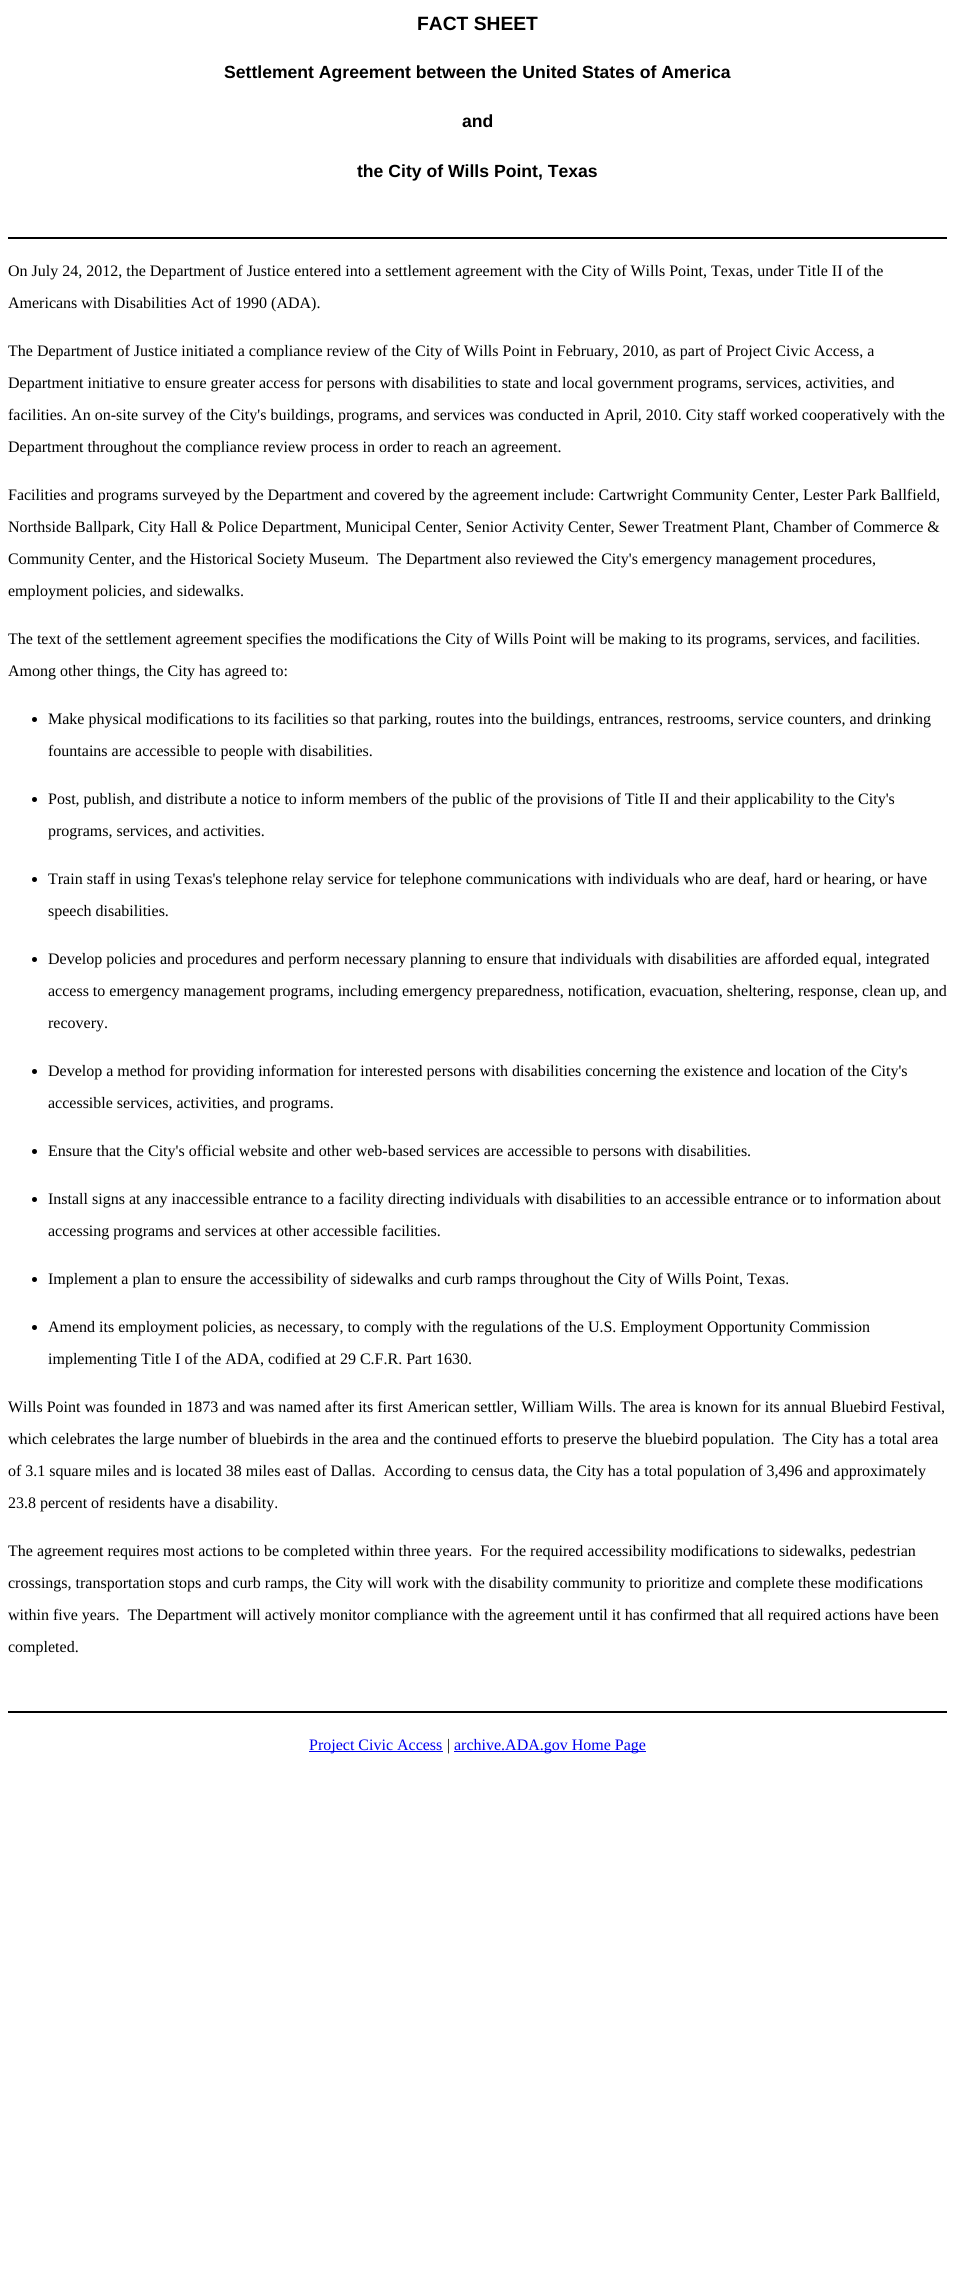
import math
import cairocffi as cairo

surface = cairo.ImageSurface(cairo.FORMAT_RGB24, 955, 2270)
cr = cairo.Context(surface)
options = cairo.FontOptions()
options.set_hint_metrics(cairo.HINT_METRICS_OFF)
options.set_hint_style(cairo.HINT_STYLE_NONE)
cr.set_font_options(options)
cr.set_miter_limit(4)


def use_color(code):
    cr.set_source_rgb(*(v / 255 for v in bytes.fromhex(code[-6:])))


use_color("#ffffff")
cr.paint()
cr.select_font_face("Liberation Sans", cairo.FONT_SLANT_NORMAL, cairo.FONT_WEIGHT_BOLD)
cr.set_font_size(19.25)
use_color("#000000")
cr.move_to(417, 30)
cr.show_text("FACT SHEET")
cr.set_font_size(17.6)
cr.move_to(224, 78)
cr.show_text("Settlement Agreement between the United States of America")
cr.move_to(462, 127)
cr.show_text("and")
cr.move_to(357, 177)
cr.show_text("the City of Wills Point, Texas")
cr.rectangle(8, 237, 939, 2)
cr.fill()
cr.select_font_face("Liberation Serif")
cr.set_font_size(16)
cr.move_to(8, 276)
cr.show_text("On July 24, 2012, the Department of Justice entered into a settlement agreement with the City of Wills Point, Texas, under Title II of the")
cr.move_to(8, 308)
cr.show_text("Americans with Disabilities Act of 1990 (ADA).")
cr.move_to(8, 356)
cr.show_text("The Department of Justice initiated a compliance review of the City of Wills Point in February, 2010, as part of Project Civic Access, a")
cr.move_to(8, 388)
cr.show_text("Department initiative to ensure greater access for persons with disabilities to state and local government programs, services, activities, and")
cr.move_to(8, 420)
cr.show_text("facilities. An on-site survey of the City's buildings, programs, and services was conducted in April, 2010. City staff worked cooperatively with the")
cr.move_to(8, 452)
cr.show_text("Department throughout the compliance review process in order to reach an agreement.")
cr.move_to(8, 500)
cr.show_text("Facilities and programs surveyed by the Department and covered by the agreement include: Cartwright Community Center, Lester Park Ballfield,")
cr.move_to(8, 532)
cr.show_text("Northside Ballpark, City Hall & Police Department, Municipal Center, Senior Activity Center, Sewer Treatment Plant, Chamber of Commerce &")
cr.move_to(8, 564)
cr.show_text("Community Center, and the Historical Society Museum.  The Department also reviewed the City's emergency management procedures,")
cr.move_to(8, 596)
cr.show_text("employment policies, and sidewalks.")
cr.move_to(8, 644)
cr.show_text("The text of the settlement agreement specifies the modifications the City of Wills Point will be making to its programs, services, and facilities.")
cr.move_to(8, 676)
cr.show_text("Among other things, the City has agreed to:")
cr.new_path()
cr.arc(34.5, 719.5, 2.5, 0, 2 * math.pi)
cr.fill()
cr.move_to(48, 724)
cr.show_text("Make physical modifications to its facilities so that parking, routes into the buildings, entrances, restrooms, service counters, and drinking")
cr.move_to(48, 756)
cr.show_text("fountains are accessible to people with disabilities.")
cr.new_path()
cr.arc(34.5, 799.5, 2.5, 0, 2 * math.pi)
cr.fill()
cr.move_to(48, 804)
cr.show_text("Post, publish, and distribute a notice to inform members of the public of the provisions of Title II and their applicability to the City's")
cr.move_to(48, 836)
cr.show_text("programs, services, and activities.")
cr.new_path()
cr.arc(34.5, 879.5, 2.5, 0, 2 * math.pi)
cr.fill()
cr.move_to(48, 884)
cr.show_text("Train staff in using Texas's telephone relay service for telephone communications with individuals who are deaf, hard or hearing, or have")
cr.move_to(48, 916)
cr.show_text("speech disabilities.")
cr.new_path()
cr.arc(34.5, 959.5, 2.5, 0, 2 * math.pi)
cr.fill()
cr.move_to(48, 964)
cr.show_text("Develop policies and procedures and perform necessary planning to ensure that individuals with disabilities are afforded equal, integrated")
cr.move_to(48, 996)
cr.show_text("access to emergency management programs, including emergency preparedness, notification, evacuation, sheltering, response, clean up, and")
cr.move_to(48, 1028)
cr.show_text("recovery.")
cr.new_path()
cr.arc(34.5, 1071.5, 2.5, 0, 2 * math.pi)
cr.fill()
cr.move_to(48, 1076)
cr.show_text("Develop a method for providing information for interested persons with disabilities concerning the existence and location of the City's")
cr.move_to(48, 1108)
cr.show_text("accessible services, activities, and programs.")
cr.new_path()
cr.arc(34.5, 1151.5, 2.5, 0, 2 * math.pi)
cr.fill()
cr.move_to(48, 1156)
cr.show_text("Ensure that the City's official website and other web-based services are accessible to persons with disabilities.")
cr.new_path()
cr.arc(34.5, 1199.5, 2.5, 0, 2 * math.pi)
cr.fill()
cr.move_to(48, 1204)
cr.show_text("Install signs at any inaccessible entrance to a facility directing individuals with disabilities to an accessible entrance or to information about")
cr.move_to(48, 1236)
cr.show_text("accessing programs and services at other accessible facilities.")
cr.new_path()
cr.arc(34.5, 1279.5, 2.5, 0, 2 * math.pi)
cr.fill()
cr.move_to(48, 1284)
cr.show_text("Implement a plan to ensure the accessibility of sidewalks and curb ramps throughout the City of Wills Point, Texas.")
cr.new_path()
cr.arc(34.5, 1327.5, 2.5, 0, 2 * math.pi)
cr.fill()
cr.move_to(48, 1332)
cr.show_text("Amend its employment policies, as necessary, to comply with the regulations of the U.S. Employment Opportunity Commission")
cr.move_to(48, 1364)
cr.show_text("implementing Title I of the ADA, codified at 29 C.F.R. Part 1630.")
cr.move_to(8, 1412)
cr.show_text("Wills Point was founded in 1873 and was named after its first American settler, William Wills. The area is known for its annual Bluebird Festival,")
cr.move_to(8, 1444)
cr.show_text("which celebrates the large number of bluebirds in the area and the continued efforts to preserve the bluebird population.  The City has a total area")
cr.move_to(8, 1476)
cr.show_text("of 3.1 square miles and is located 38 miles east of Dallas.  According to census data, the City has a total population of 3,496 and approximately")
cr.move_to(8, 1508)
cr.show_text("23.8 percent of residents have a disability.")
cr.move_to(8, 1556)
cr.show_text("The agreement requires most actions to be completed within three years.  For the required accessibility modifications to sidewalks, pedestrian")
cr.move_to(8, 1588)
cr.show_text("crossings, transportation stops and curb ramps, the City will work with the disability community to prioritize and complete these modifications")
cr.move_to(8, 1620)
cr.show_text("within five years.  The Department will actively monitor compliance with the agreement until it has confirmed that all required actions have been")
cr.move_to(8, 1652)
cr.show_text("completed.")
cr.rectangle(8, 1711, 939, 2)
cr.fill()
use_color("#0000ee")
cr.rectangle(309, 1751, 134, 1)
cr.fill()
cr.move_to(309, 1750)
cr.show_text("Project Civic Access")
use_color("#000000")
cr.move_to(447, 1750)
cr.show_text("|")
use_color("#0000ee")
cr.rectangle(454, 1751, 192, 1)
cr.fill()
cr.move_to(454, 1750)
cr.show_text("archive.ADA.gov Home Page")
surface.write_to_png("result.png")
